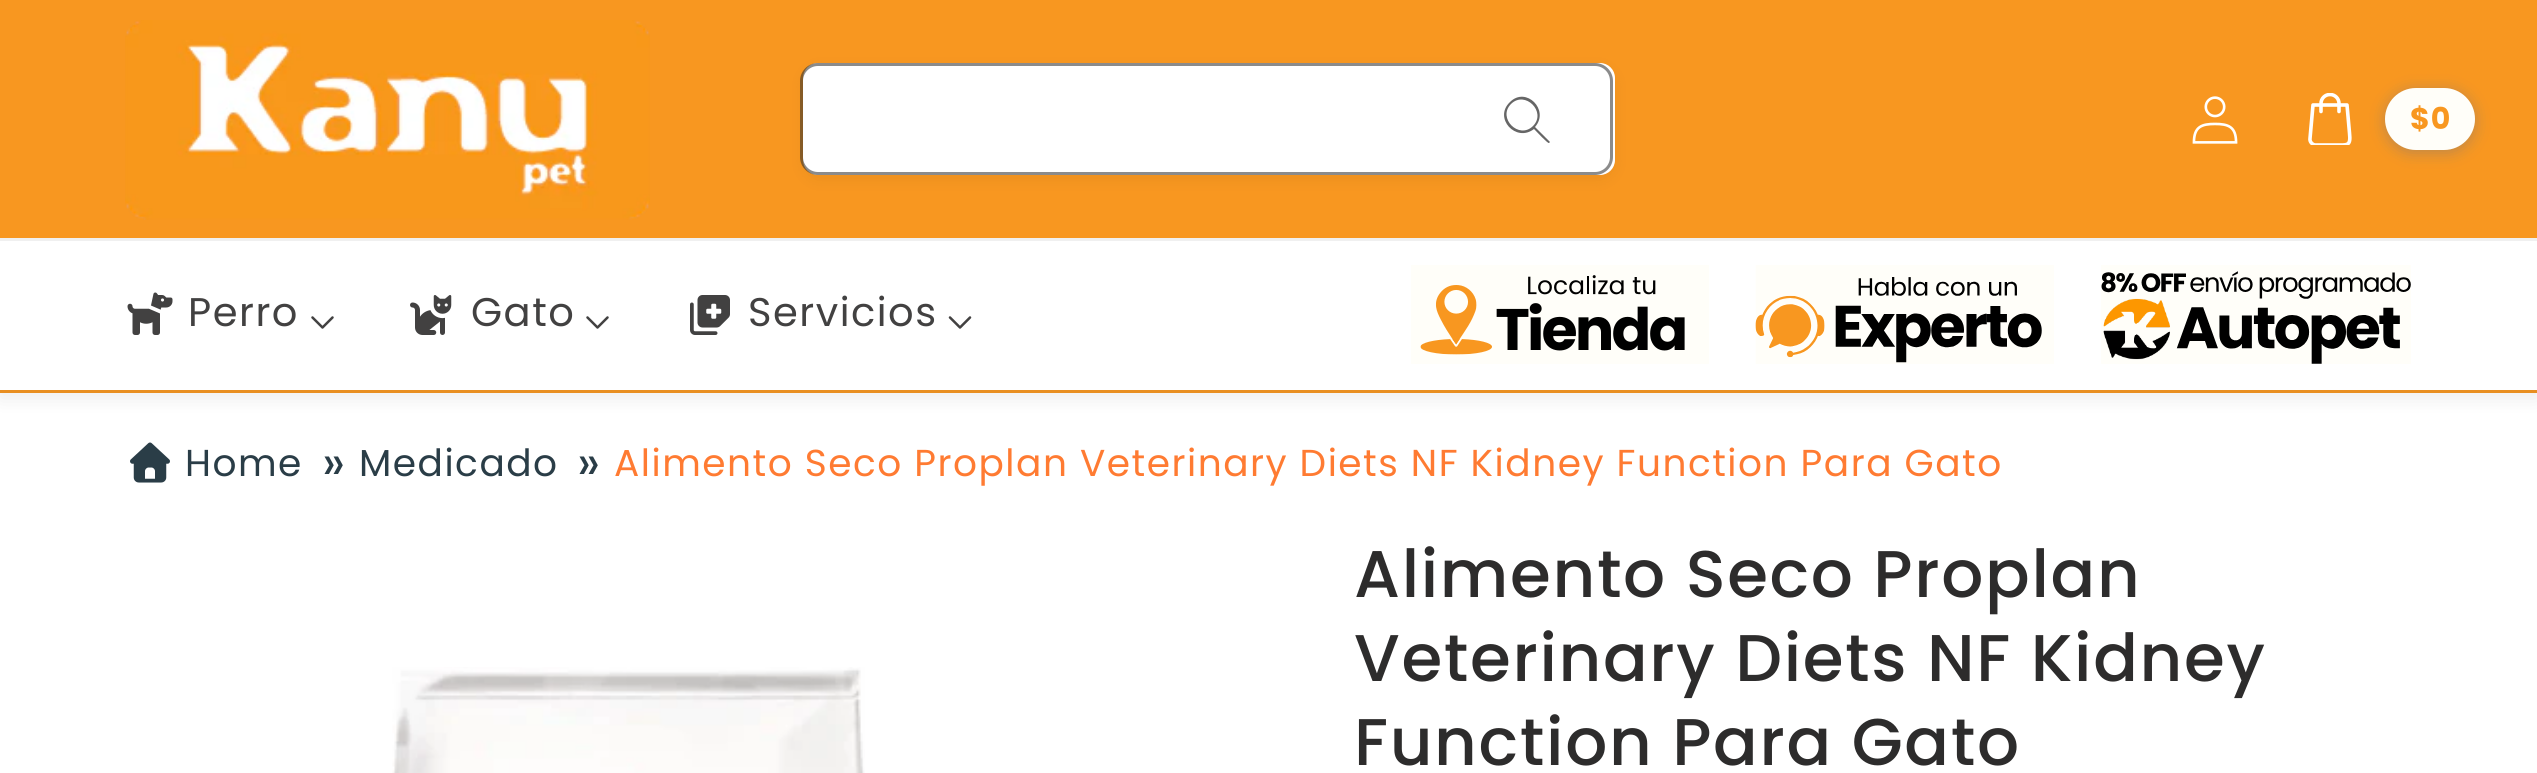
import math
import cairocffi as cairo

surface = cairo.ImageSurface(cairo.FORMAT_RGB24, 2537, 773)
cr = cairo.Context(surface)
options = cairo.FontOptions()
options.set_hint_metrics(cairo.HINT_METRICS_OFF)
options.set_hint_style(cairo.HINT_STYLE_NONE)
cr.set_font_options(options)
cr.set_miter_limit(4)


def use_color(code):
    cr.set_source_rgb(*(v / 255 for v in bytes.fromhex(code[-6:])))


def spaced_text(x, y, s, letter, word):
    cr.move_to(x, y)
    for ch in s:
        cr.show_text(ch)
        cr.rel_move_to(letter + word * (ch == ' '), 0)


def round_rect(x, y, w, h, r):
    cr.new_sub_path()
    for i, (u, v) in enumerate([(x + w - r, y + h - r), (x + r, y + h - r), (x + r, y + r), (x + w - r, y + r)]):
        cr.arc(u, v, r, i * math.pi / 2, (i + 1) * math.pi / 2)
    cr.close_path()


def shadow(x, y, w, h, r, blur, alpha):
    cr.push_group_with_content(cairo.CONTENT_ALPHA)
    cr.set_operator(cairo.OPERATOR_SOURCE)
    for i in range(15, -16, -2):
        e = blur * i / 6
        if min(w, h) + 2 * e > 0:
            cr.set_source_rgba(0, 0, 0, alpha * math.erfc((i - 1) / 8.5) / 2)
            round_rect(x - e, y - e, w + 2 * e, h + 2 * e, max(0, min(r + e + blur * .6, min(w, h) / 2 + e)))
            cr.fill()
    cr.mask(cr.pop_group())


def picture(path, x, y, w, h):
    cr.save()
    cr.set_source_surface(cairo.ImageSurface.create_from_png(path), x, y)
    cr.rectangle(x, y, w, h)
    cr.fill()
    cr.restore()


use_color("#ffffff")
cr.paint()
use_color("#000000")
shadow(0, 5, 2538, 393, 0, 10, 0.08)
use_color("#f89720")
cr.rectangle(0, 0, 2537, 238)
cr.fill()
use_color("#e88e21")
cr.rectangle(0, 390, 2537, 3)
cr.fill()
picture("img1.png", 125, 20, 525, 200)
use_color("#000000")
shadow(803, 68, 812, 112, 15, 7.5, 0.05)
use_color("#ffffff")
round_rect(803, 63, 812, 112, 15)
cr.fill()
round_rect(801.5, 64.5, 810, 109, 16.5)
cr.set_source_rgba(0.176, 0.173, 0.173, 0.55)
cr.set_line_width(3)
cr.stroke()
use_color("#666666")
cr.set_fill_rule(cairo.FILL_RULE_EVEN_ODD)
cr.new_path()
cr.move_to(1533, 126)
cr.curve_to(1519, 140, 1497, 118, 1511, 104)
cr.curve_to(1525, 90, 1547, 112, 1533, 126)
cr.close_path()
cr.move_to(1534, 129)
cr.curve_to(1516, 143, 1493, 118, 1510, 102)
cr.curve_to(1526, 86, 1550, 110, 1535, 127)
cr.line_to(1550, 142)
cr.line_to(1549, 143)
cr.curve_to(1548, 144, 1536, 131, 1534, 129)
cr.close_path()
cr.fill()
picture("img2.png", 2192, 96, 46, 48)
cr.save()
cr.set_fill_rule(cairo.FILL_RULE_WINDING)
cr.rectangle(2303, 93, 55, 52)
cr.clip()
cr.new_path()
cr.move_to(2313, 105)
cr.line_to(2347, 105)
cr.line_to(2349.5, 133)
cr.curve_to(2351, 146.5, 2347.5, 145, 2334.5, 145)
cr.line_to(2315, 145)
cr.curve_to(2312, 144.5, 2309.5, 141.5, 2310, 138.5)
cr.close_path()
cr.move_to(2321, 111.5)
cr.line_to(2321, 103.5)
cr.curve_to(2321, 98.5, 2325, 94.5, 2330, 94.5)
cr.curve_to(2335, 94.5, 2339, 98.5, 2339, 103.5)
cr.line_to(2339, 111.5)
use_color("#ffffff")
cr.set_line_width(3.6)
cr.set_line_cap(cairo.LINE_CAP_ROUND)
cr.set_line_join(cairo.LINE_JOIN_ROUND)
cr.stroke()
cr.restore()
use_color("#3464ae")
shadow(2385, 90, 90, 63, 31.5, 7.5, 0.3)
use_color("#fffef9")
round_rect(2385, 88, 90, 62, 31)
cr.fill()
cr.select_font_face("Poppins", cairo.FONT_SLANT_NORMAL, cairo.FONT_WEIGHT_BOLD)
cr.set_font_size(30)
use_color("#f89720")
spaced_text(2410, 129, "$0", 1, 0)
use_color("#ffffff")
cr.rectangle(0, 241, 2537, 149)
cr.fill()
use_color("#f0f0f0")
cr.rectangle(0, 238, 2537, 3)
cr.fill()
picture("img3.png", 127, 292, 46, 43)
cr.select_font_face("Poppins")
cr.set_font_size(40)
use_color("#424141")
spaced_text(188, 326, "Perro", 1.5, 0)
picture("img4.png", 311, 316, 23, 13)
picture("img5.png", 410, 295, 42, 40)
spaced_text(471, 326, "Gato", 1.5, 0)
picture("img4.png", 586, 316, 23, 13)
picture("img6.png", 690, 295, 40, 40)
spaced_text(748, 326, "Servicios", 1.5, 0)
picture("img7.png", 948, 316, 24, 13)
picture("img8.png", 1411, 265, 298, 99)
picture("img9.png", 1755, 265, 299, 99)
picture("img10.png", 2101, 265, 310, 99)
picture("img11.png", 130, 442, 40, 41)
cr.set_font_size(37.5)
use_color("#2a3d47")
spaced_text(185, 476, "Home", 1.5, 0)
cr.set_font_size(50)
spaced_text(322, 480, "»", 1.5, 0)
cr.set_font_size(37.5)
spaced_text(359, 476, "Medicado", 1.5, 0)
cr.set_font_size(50)
spaced_text(577, 480, "»", 1.5, 0)
cr.set_font_size(37.5)
use_color("#ff7b32")
spaced_text(614, 476, "Alimento Seco Proplan Veterinary Diets NF Kidney Function Para Gato", 1.5, 0)
picture("img12.png", 392, 667, 473, 106)
cr.select_font_face("Poppins Medium")
cr.set_font_size(66)
use_color("#2d2c2c")
spaced_text(1354, 597, "Alimento Seco Proplan", 1.65, 0)
spaced_text(1354, 681, "Veterinary Diets NF Kidney", 1.65, 0)
spaced_text(1354, 765, "Function Para Gato", 1.65, 0)
surface.write_to_png("result.png")
